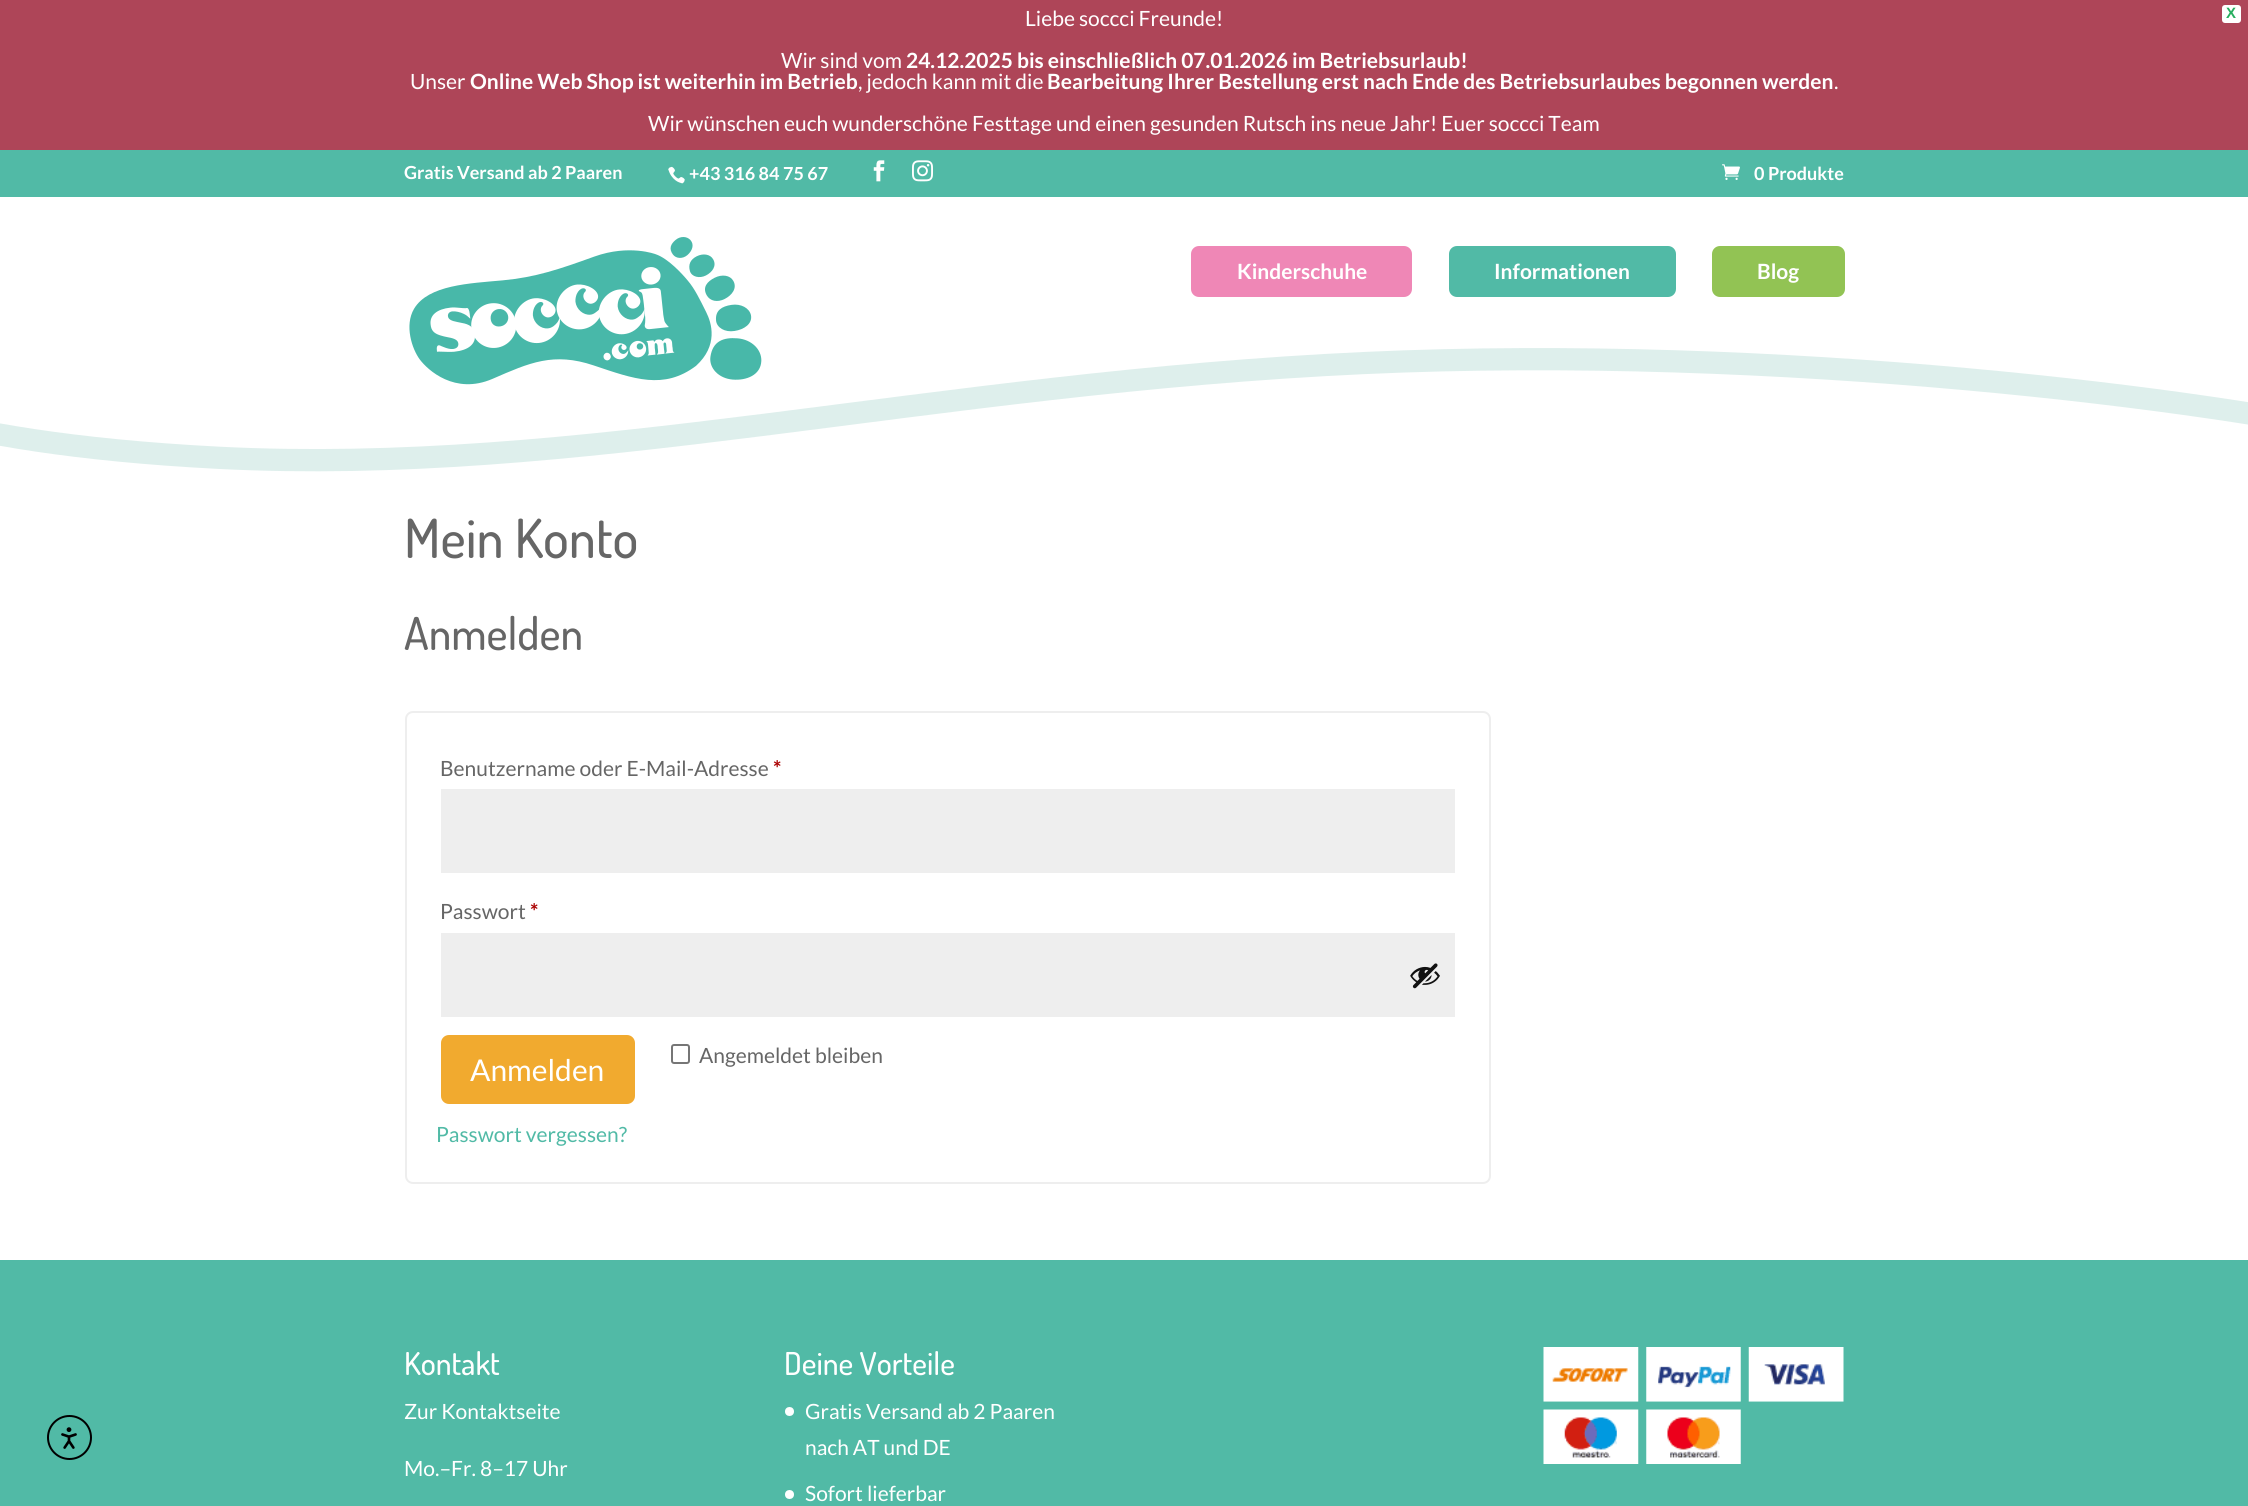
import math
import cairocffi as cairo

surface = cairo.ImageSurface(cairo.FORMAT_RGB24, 2248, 1506)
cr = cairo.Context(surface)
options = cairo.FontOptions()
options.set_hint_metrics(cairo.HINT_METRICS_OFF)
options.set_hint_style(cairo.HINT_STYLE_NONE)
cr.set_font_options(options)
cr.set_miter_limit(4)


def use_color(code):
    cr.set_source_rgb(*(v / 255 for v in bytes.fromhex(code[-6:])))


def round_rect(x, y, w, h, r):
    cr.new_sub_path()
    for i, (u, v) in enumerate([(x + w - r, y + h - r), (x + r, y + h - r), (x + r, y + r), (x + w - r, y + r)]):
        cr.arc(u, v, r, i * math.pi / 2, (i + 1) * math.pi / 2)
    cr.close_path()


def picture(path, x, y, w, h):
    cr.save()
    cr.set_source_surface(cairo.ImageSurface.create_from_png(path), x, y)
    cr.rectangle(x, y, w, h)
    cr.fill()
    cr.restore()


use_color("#ffffff")
cr.paint()
use_color("#ae4558")
cr.rectangle(0, 0, 2248, 150)
cr.fill()
cr.select_font_face("Lato")
cr.set_font_size(21)
use_color("#ffffff")
cr.move_to(1025, 26)
cr.show_text("Liebe soccci Freunde!")
cr.move_to(781, 68)
cr.show_text("Wir sind vom")
cr.select_font_face("Lato", cairo.FONT_SLANT_NORMAL, cairo.FONT_WEIGHT_BOLD)
cr.move_to(906, 68)
cr.show_text("24.12.2025 bis einschließlich 07.01.2026 im Betriebsurlaub!")
cr.select_font_face("Lato")
cr.move_to(410, 89)
cr.show_text("Unser")
cr.select_font_face("Lato", cairo.FONT_SLANT_NORMAL, cairo.FONT_WEIGHT_BOLD)
cr.move_to(470, 89)
cr.show_text("Online Web Shop ist weiterhin im Betrieb")
cr.select_font_face("Lato")
cr.move_to(858, 89)
cr.show_text(", jedoch kann mit die")
cr.select_font_face("Lato", cairo.FONT_SLANT_NORMAL, cairo.FONT_WEIGHT_BOLD)
cr.move_to(1047, 89)
cr.show_text("Bearbeitung Ihrer Bestellung erst nach Ende des Betriebsurlaubes begonnen werden")
cr.select_font_face("Lato")
cr.move_to(1834, 89)
cr.show_text(".")
cr.move_to(648, 131)
cr.show_text("Wir wünschen euch wunderschöne Festtage und einen gesunden Rutsch ins neue Jahr! Euer soccci Team")
round_rect(2223, 6, 17, 16, 2)
cr.fill_preserve()
cr.stroke()
cr.select_font_face("Liberation Sans", cairo.FONT_SLANT_NORMAL, cairo.FONT_WEIGHT_BOLD)
cr.set_font_size(15)
use_color("#27ae5f")
cr.move_to(2226, 18)
cr.show_text("X")
use_color("#51baa6")
cr.rectangle(0, 1260, 2248, 246)
cr.fill()
cr.arc(69.5, 1437.5, 21.5, 0, 2 * math.pi)
use_color("#000000")
cr.stroke()
picture("img1.png", 61, 1427, 16, 22)
use_color("#51baa6")
cr.rectangle(0, 150, 2248, 47)
cr.fill()
cr.select_font_face("Lato", cairo.FONT_SLANT_NORMAL, cairo.FONT_WEIGHT_BOLD)
cr.set_font_size(18)
use_color("#ffffff")
cr.move_to(404, 179)
cr.show_text("Gratis Versand ab 2 Paaren")
picture("img2.png", 668, 166, 17, 18)
cr.move_to(689, 180)
cr.show_text("+43 316 84 75 67")
picture("img3.png", 873, 160, 12, 22)
picture("img4.png", 912, 160, 21, 22)
picture("img5.png", 1722, 164, 18, 16)
cr.move_to(1754, 180)
cr.show_text("0 Produkte")
picture("img6.png", 0, 348, 2248, 124)
picture("img7.png", 409, 237, 353, 148)
use_color("#ef87b6")
round_rect(1191, 246, 221, 51, 8)
cr.fill()
cr.set_font_size(21)
use_color("#ffffff")
cr.move_to(1237, 279)
cr.show_text("Kinderschuhe")
use_color("#51baa6")
round_rect(1449, 246, 227, 51, 8)
cr.fill()
use_color("#ffffff")
cr.move_to(1494, 279)
cr.show_text("Informationen")
use_color("#92c354")
round_rect(1712, 246, 133, 51, 8)
cr.fill()
use_color("#ffffff")
cr.move_to(1757, 279)
cr.show_text("Blog")
cr.select_font_face("Dosis Medium")
cr.set_font_size(54)
use_color("#666666")
cr.move_to(404, 558)
cr.show_text("Mein Konto")
cr.set_font_size(45)
cr.move_to(404, 650)
cr.show_text("Anmelden")
round_rect(406, 712, 1084, 471, 7)
use_color("#eeeeee")
cr.stroke()
cr.select_font_face("Lato")
cr.set_font_size(21)
use_color("#666666")
cr.move_to(440, 776)
cr.show_text("Benutzername oder E-Mail-Adresse")
cr.select_font_face("Lato", cairo.FONT_SLANT_NORMAL, cairo.FONT_WEIGHT_BOLD)
use_color("#aa0000")
cr.move_to(773, 776)
cr.show_text("*")
use_color("#eeeeee")
cr.rectangle(441, 789, 1014, 84)
cr.fill()
cr.select_font_face("Lato")
use_color("#666666")
cr.move_to(440, 919)
cr.show_text("Passwort")
cr.select_font_face("Lato", cairo.FONT_SLANT_NORMAL, cairo.FONT_WEIGHT_BOLD)
use_color("#aa0000")
cr.move_to(530, 919)
cr.show_text("*")
use_color("#eeeeee")
cr.rectangle(441, 933, 1014, 84)
cr.fill()
picture("img8.png", 1410, 963, 30, 26)
use_color("#f1aa2f")
round_rect(441, 1035, 194, 69, 8)
cr.fill()
cr.select_font_face("Lato")
cr.set_font_size(30)
use_color("#ffffff")
cr.move_to(470, 1081)
cr.show_text("Anmelden")
round_rect(672, 1045, 17, 18, 2)
use_color("#767676")
cr.stroke()
cr.set_font_size(21)
use_color("#666666")
cr.move_to(699, 1063)
cr.show_text("Angemeldet bleiben")
use_color("#51baa6")
cr.move_to(436, 1142)
cr.show_text("Passwort vergessen?")
cr.select_font_face("Dosis Medium")
cr.set_font_size(31.5)
use_color("#ffffff")
cr.move_to(404, 1375)
cr.show_text("Kontakt")
cr.select_font_face("Lato")
cr.set_font_size(21)
cr.move_to(404, 1419)
cr.show_text("Zur Kontaktseite")
cr.move_to(404, 1476)
cr.show_text("Mo.–Fr. 8–17 Uhr")
cr.select_font_face("Dosis Medium")
cr.set_font_size(31.5)
cr.move_to(784, 1375)
cr.show_text("Deine Vorteile")
cr.new_path()
cr.arc(789.5, 1411.5, 4.5, 0, 2 * math.pi)
cr.fill()
cr.select_font_face("Lato")
cr.set_font_size(21)
cr.move_to(805, 1419)
cr.show_text("Gratis Versand ab 2 Paaren")
cr.move_to(805, 1455)
cr.show_text("nach AT und DE")
cr.new_path()
cr.arc(789.5, 1494.5, 4.5, 0, 2 * math.pi)
cr.fill()
cr.move_to(805, 1501)
cr.show_text("Sofort lieferbar")
picture("img9.png", 1543, 1347, 301, 117)
surface.write_to_png("result.png")
